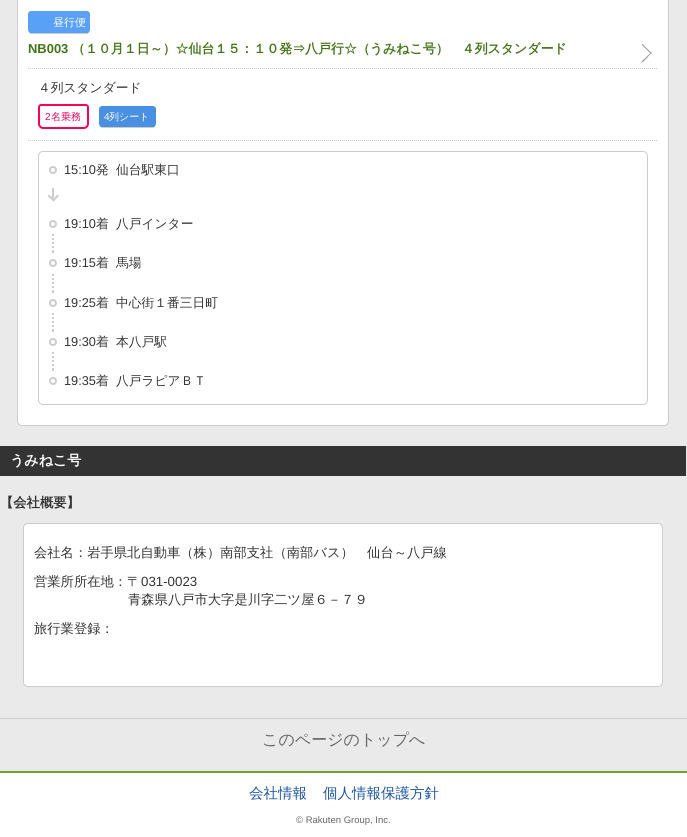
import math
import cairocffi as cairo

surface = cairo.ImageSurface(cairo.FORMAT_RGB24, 687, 837)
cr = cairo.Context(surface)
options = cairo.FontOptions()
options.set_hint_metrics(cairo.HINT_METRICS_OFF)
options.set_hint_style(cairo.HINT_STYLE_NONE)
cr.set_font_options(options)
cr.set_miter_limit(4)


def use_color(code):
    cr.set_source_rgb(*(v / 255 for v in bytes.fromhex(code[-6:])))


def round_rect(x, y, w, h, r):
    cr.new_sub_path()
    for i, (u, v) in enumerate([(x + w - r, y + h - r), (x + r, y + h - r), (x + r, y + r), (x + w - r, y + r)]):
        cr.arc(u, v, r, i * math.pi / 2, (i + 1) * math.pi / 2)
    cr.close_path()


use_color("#ffffff")
cr.paint()
use_color("#eaeaea")
cr.rectangle(0, 0, 687, 771)
cr.fill()
use_color("#ffffff")
round_rect(17, -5, 652, 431, 5)
cr.fill()
use_color("#cccccc")
cr.rectangle(668, 0, 1, 141)
cr.fill()
cr.rectangle(17, 0, 1, 141)
cr.fill()
use_color("#58a1f6")
cr.new_path()
cr.move_to(31, 11)
cr.line_to(87, 11)
cr.curve_to(88.5, 11, 90, 12.5, 90, 14)
cr.line_to(90, 29)
cr.curve_to(90, 32, 88, 34, 85, 34)
cr.line_to(33, 34)
cr.curve_to(30, 34, 28, 32, 28, 29)
cr.line_to(28, 14)
cr.curve_to(28, 12.5, 29.5, 11, 31, 11)
cr.close_path()
cr.fill()
cr.select_font_face("WenQuanYi Zen Hei Medium")
cr.set_font_size(11)
use_color("#ffffff")
cr.move_to(53, 26)
cr.show_text("昼行便")
use_color("#cccccc")
cr.rectangle(31, 33, 57, 1)
cr.fill()
cr.select_font_face("Liberation Sans", cairo.FONT_SLANT_NORMAL, cairo.FONT_WEIGHT_BOLD)
cr.set_font_size(12.95)
use_color("#437617")
cr.move_to(28, 53)
cr.show_text("NB003")
cr.select_font_face("WenQuanYi Zen Hei", cairo.FONT_SLANT_NORMAL, cairo.FONT_WEIGHT_BOLD)
cr.move_to(72, 53)
cr.show_text("（１０月１日～）☆仙台１５：１０発⇒八戸行☆（うみねこ号）　４列スタンダード")
use_color("#999999")
cr.new_path()
cr.move_to(642.5, 44)
cr.line_to(651.5, 53)
cr.line_to(651, 54)
cr.line_to(641.5, 44.5)
cr.close_path()
cr.fill()
cr.new_path()
cr.move_to(651, 52.5)
cr.line_to(651.5, 53)
cr.line_to(642.5, 62.5)
cr.line_to(641.5, 61.5)
cr.close_path()
cr.fill()
cr.new_path()
cr.move_to(28, 68.5)
cr.line_to(658, 68.5)
use_color("#cccccc")
cr.set_line_width(1)
cr.set_dash([1, 1])
cr.stroke()
cr.new_path()
cr.move_to(28, 140.5)
cr.line_to(658, 140.5)
cr.stroke()
cr.select_font_face("WenQuanYi Zen Hei Medium")
cr.set_font_size(12.75)
use_color("#333333")
cr.move_to(38, 92)
cr.show_text("４列スタンダード")
cr.new_path()
cr.move_to(41, 105)
cr.line_to(86, 105)
cr.curve_to(87, 105, 88, 106, 88, 107)
cr.line_to(88, 124)
cr.curve_to(88, 126, 86, 128, 84, 128)
cr.line_to(43, 128)
cr.curve_to(41, 128, 39, 126, 39, 124)
cr.line_to(39, 107)
cr.curve_to(39, 106, 40, 105, 41, 105)
cr.close_path()
use_color("#fb0159")
cr.set_line_width(2)
cr.set_dash([])
cr.stroke()
cr.select_font_face("Liberation Sans")
cr.set_font_size(10)
cr.move_to(45, 120)
cr.show_text("2")
cr.select_font_face("WenQuanYi Zen Hei Medium")
cr.move_to(51, 120)
cr.show_text("名乗務")
use_color("#4a90e2")
cr.new_path()
cr.move_to(102, 106)
cr.line_to(153, 106)
cr.curve_to(154.5, 106, 156, 107.5, 156, 109)
cr.line_to(156, 123)
cr.curve_to(156, 126, 154, 128, 151, 128)
cr.line_to(104, 128)
cr.curve_to(101, 128, 99, 126, 99, 123)
cr.line_to(99, 109)
cr.curve_to(99, 107.5, 100.5, 106, 102, 106)
cr.close_path()
cr.fill()
cr.select_font_face("Liberation Sans")
use_color("#ffffff")
cr.move_to(104, 120)
cr.show_text("4")
cr.select_font_face("WenQuanYi Zen Hei Medium")
cr.move_to(109, 120)
cr.show_text("列シート")
use_color("#cccccc")
cr.rectangle(102, 127, 52, 1)
cr.fill()
use_color("#ffffff")
cr.new_path()
cr.move_to(17, 141)
cr.line_to(669, 141)
cr.line_to(669, 421)
cr.curve_to(669, 424, 667, 426, 664, 426)
cr.line_to(22, 426)
cr.curve_to(19, 426, 17, 424, 17, 421)
cr.close_path()
cr.fill()
use_color("#cccccc")
cr.new_path()
cr.move_to(18, 141)
cr.line_to(17, 141)
cr.line_to(17, 421)
cr.curve_to(17, 424, 19, 426, 22, 426)
cr.line_to(664, 426)
cr.curve_to(667, 426, 669, 424, 669, 421)
cr.line_to(669, 141)
cr.line_to(668, 141)
cr.line_to(668, 421)
cr.curve_to(668, 423, 666, 425, 664, 425)
cr.line_to(22, 425)
cr.curve_to(20, 425, 18, 423, 18, 421)
cr.close_path()
cr.fill()
round_rect(38.5, 151.5, 609, 253, 4.5)
cr.set_line_width(1)
cr.stroke()
cr.arc(53, 170, 3, 0, 2 * math.pi)
cr.set_line_width(2)
cr.stroke()
cr.select_font_face("Liberation Sans")
cr.set_font_size(12.75)
use_color("#333333")
cr.move_to(64, 174)
cr.show_text("15:10")
cr.select_font_face("WenQuanYi Zen Hei Medium")
cr.move_to(96, 174)
cr.show_text("発")
cr.move_to(116, 174)
cr.show_text("仙台駅東口")
use_color("#cccccc")
cr.rectangle(52, 188, 2, 10)
cr.fill()
cr.new_path()
cr.move_to(57.5, 194.5)
cr.line_to(59, 196)
cr.line_to(53.5, 201.5)
cr.line_to(52, 200)
cr.close_path()
cr.fill()
cr.new_path()
cr.move_to(49, 194.5)
cr.line_to(55, 200)
cr.line_to(53.5, 201.5)
cr.line_to(47.5, 196)
cr.close_path()
cr.fill()
cr.arc(53, 224, 3, 0, 2 * math.pi)
cr.stroke()
cr.select_font_face("Liberation Sans")
use_color("#333333")
cr.move_to(64, 228)
cr.show_text("19:10")
cr.select_font_face("WenQuanYi Zen Hei Medium")
cr.move_to(96, 228)
cr.show_text("着")
cr.move_to(116, 228)
cr.show_text("八戸インター")
cr.new_path()
cr.move_to(53, 234)
cr.line_to(53, 253)
use_color("#cccccc")
cr.set_dash([2, 2])
cr.stroke()
cr.rectangle(52, 252, 2, 1)
cr.fill()
cr.arc(53, 263, 3, 0, 2 * math.pi)
cr.set_dash([])
cr.stroke()
cr.select_font_face("Liberation Sans")
use_color("#333333")
cr.move_to(64, 267)
cr.show_text("19:15")
cr.select_font_face("WenQuanYi Zen Hei Medium")
cr.move_to(96, 267)
cr.show_text("着")
cr.move_to(116, 267)
cr.show_text("馬場")
cr.new_path()
cr.move_to(53, 274)
cr.line_to(53, 293)
use_color("#cccccc")
cr.set_dash([2, 2])
cr.stroke()
cr.rectangle(52, 292, 2, 1)
cr.fill()
cr.arc(53, 303, 3, 0, 2 * math.pi)
cr.set_dash([])
cr.stroke()
cr.select_font_face("Liberation Sans")
use_color("#333333")
cr.move_to(64, 307)
cr.show_text("19:25")
cr.select_font_face("WenQuanYi Zen Hei Medium")
cr.move_to(96, 307)
cr.show_text("着")
cr.move_to(116, 307)
cr.show_text("中心街１番三日町")
cr.new_path()
cr.move_to(53, 313)
cr.line_to(53, 332)
use_color("#cccccc")
cr.set_dash([2, 2])
cr.stroke()
cr.rectangle(52, 331, 2, 1)
cr.fill()
cr.arc(53, 342, 3, 0, 2 * math.pi)
cr.set_dash([])
cr.stroke()
cr.select_font_face("Liberation Sans")
use_color("#333333")
cr.move_to(64, 346)
cr.show_text("19:30")
cr.select_font_face("WenQuanYi Zen Hei Medium")
cr.move_to(96, 346)
cr.show_text("着")
cr.move_to(116, 346)
cr.show_text("本八戸駅")
cr.new_path()
cr.move_to(53, 352)
cr.line_to(53, 371)
use_color("#cccccc")
cr.set_dash([2, 2])
cr.stroke()
cr.rectangle(52, 370, 2, 1)
cr.fill()
cr.arc(53, 381, 3, 0, 2 * math.pi)
cr.set_dash([])
cr.stroke()
cr.select_font_face("Liberation Sans")
use_color("#333333")
cr.move_to(64, 385)
cr.show_text("19:35")
cr.select_font_face("WenQuanYi Zen Hei Medium")
cr.move_to(96, 385)
cr.show_text("着")
cr.move_to(116, 385)
cr.show_text("八戸ラピアＢＴ")
cr.rectangle(0, 446, 686, 30)
cr.fill()
cr.select_font_face("WenQuanYi Zen Hei", cairo.FONT_SLANT_NORMAL, cairo.FONT_WEIGHT_BOLD)
cr.set_font_size(14)
use_color("#ffffff")
cr.move_to(10, 465)
cr.show_text("うみねこ号")
cr.set_font_size(13.3)
use_color("#333333")
cr.move_to(0, 507)
cr.show_text("【会社概要】")
use_color("#ffffff")
round_rect(23.5, 523.5, 639, 163, 4.5)
cr.fill_preserve()
use_color("#cccccc")
cr.set_line_width(1)
cr.stroke()
cr.select_font_face("WenQuanYi Zen Hei Medium")
use_color("#333333")
cr.move_to(34, 557)
cr.show_text("会社名：岩手県北自動車（株）南部支社（南部バス）　仙台～八戸線")
cr.move_to(34, 586)
cr.show_text("営業所所在地：〒")
cr.select_font_face("Liberation Sans")
cr.move_to(141, 586)
cr.show_text("031-0023")
cr.select_font_face("WenQuanYi Zen Hei Medium")
cr.move_to(128, 604)
cr.show_text("青森県八戸市大字是川字二ツ屋６－７９")
cr.move_to(34, 633)
cr.show_text("旅行業登録：")
use_color("#cccccc")
cr.rectangle(0, 718, 687, 1)
cr.fill()
cr.set_font_size(16)
use_color("#666666")
cr.move_to(262, 745)
cr.show_text("このページのトップへ")
use_color("#72a331")
cr.rectangle(0, 771, 687, 2)
cr.fill()
cr.set_font_size(14.5)
use_color("#1d54a7")
cr.move_to(249, 798)
cr.show_text("会社情報")
cr.move_to(323, 798)
cr.show_text("個人情報保護方針")
cr.select_font_face("Liberation Sans")
cr.set_font_size(9.5)
use_color("#666666")
cr.move_to(296, 823)
cr.show_text("© Rakuten Group, Inc.")
surface.write_to_png("result.png")
